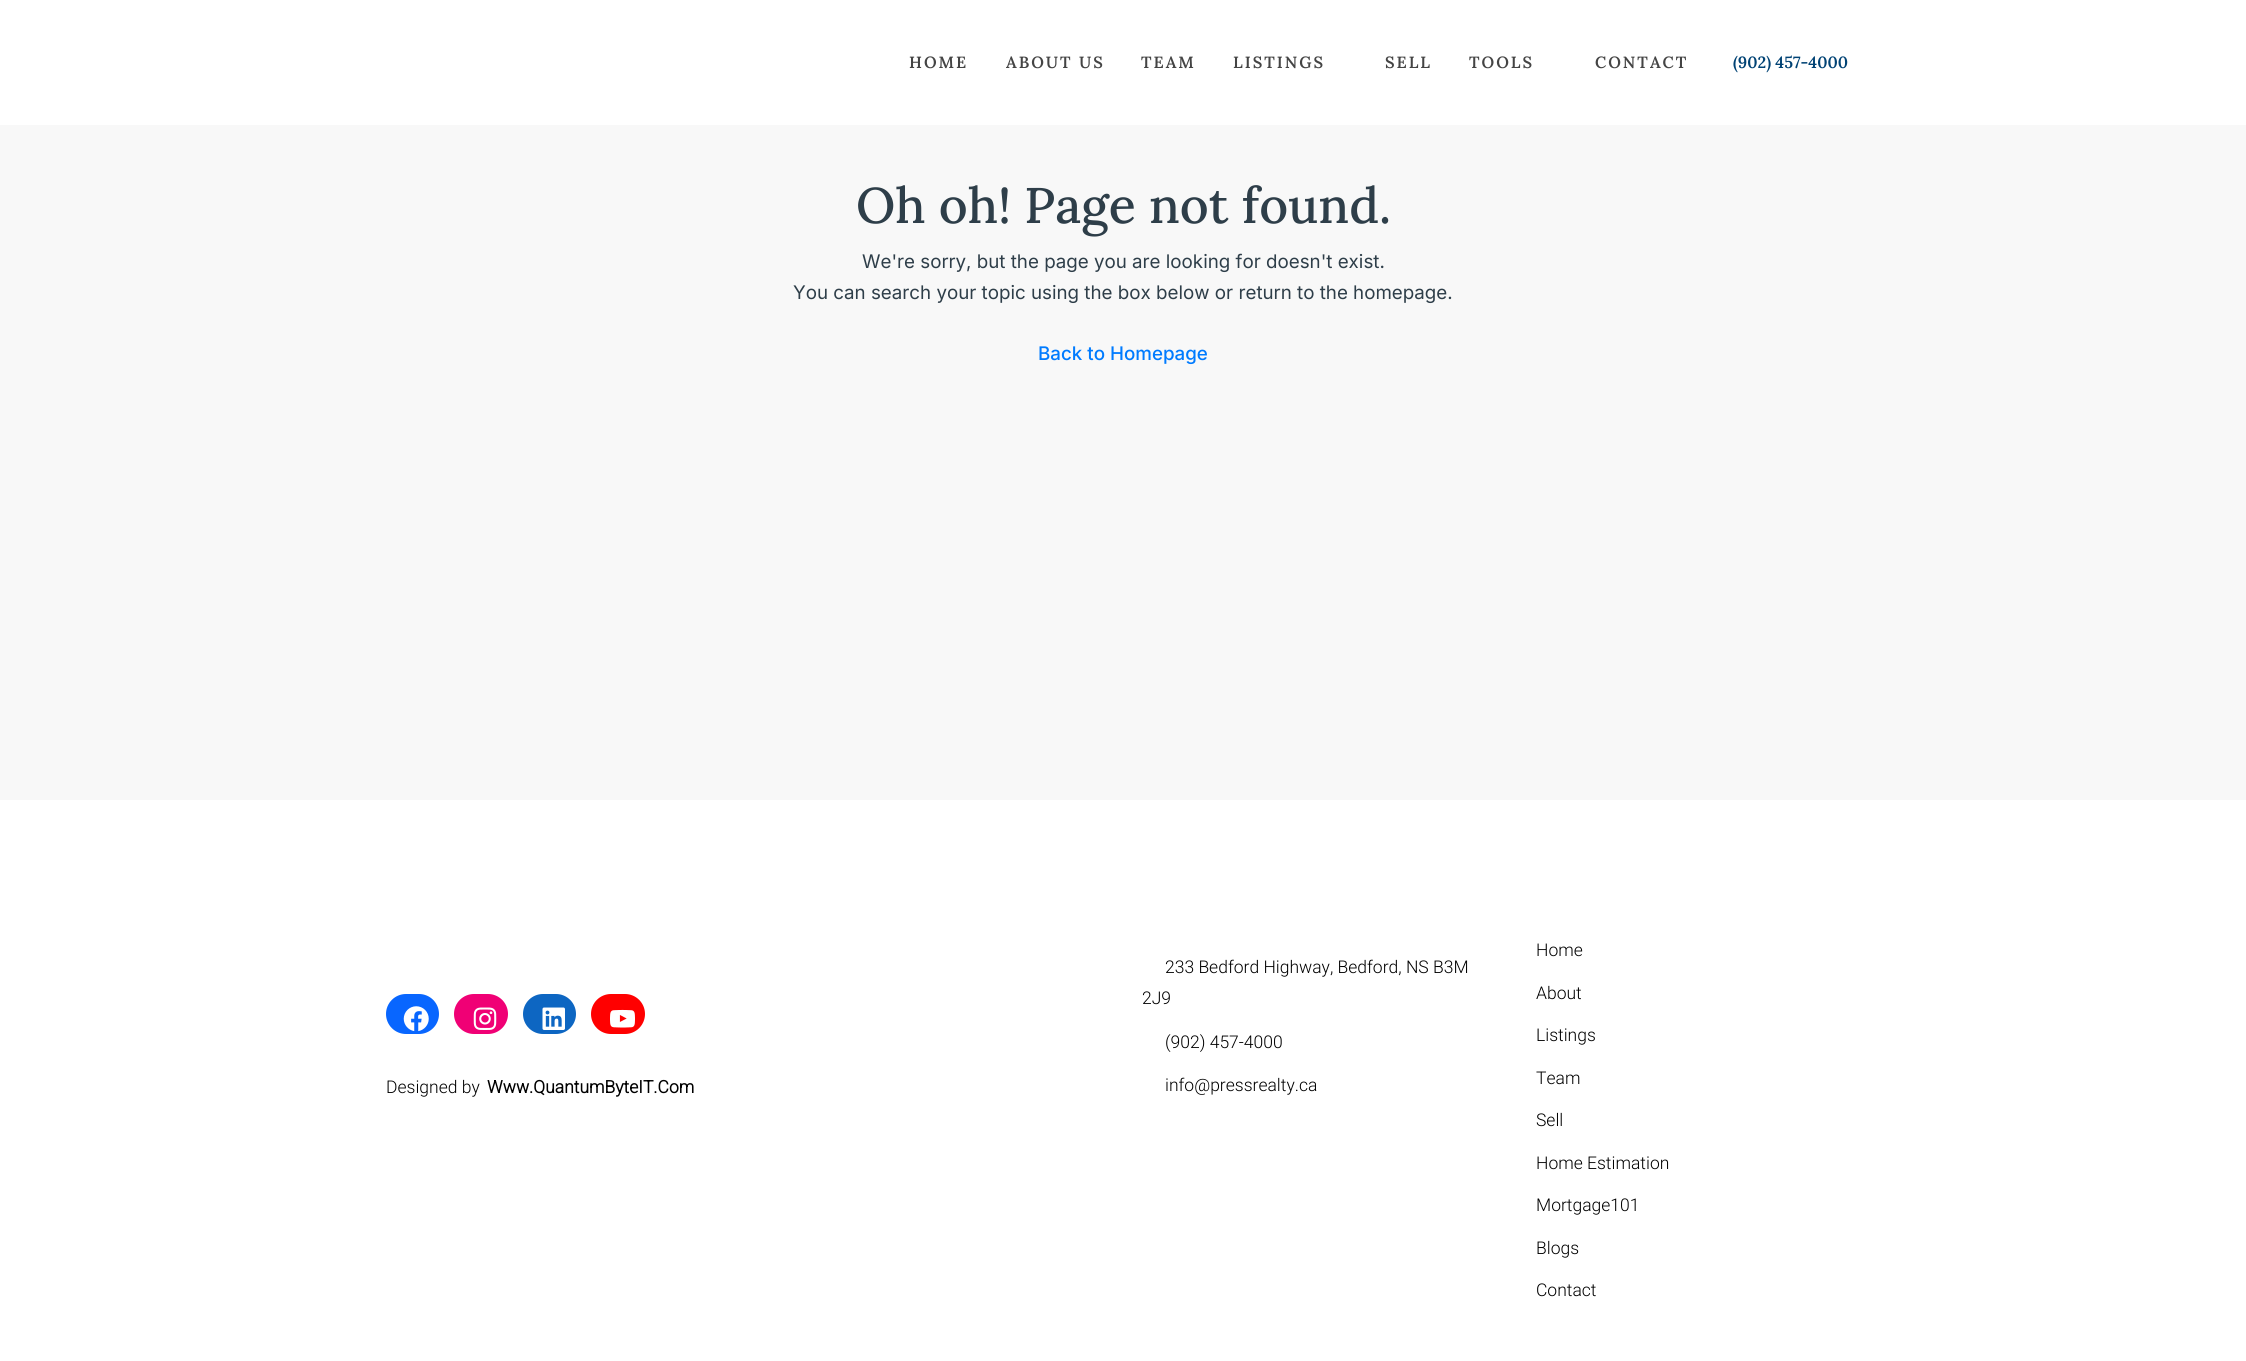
import math
import cairocffi as cairo

surface = cairo.ImageSurface(cairo.FORMAT_RGB24, 2246, 1361)
cr = cairo.Context(surface)
options = cairo.FontOptions()
options.set_hint_metrics(cairo.HINT_METRICS_OFF)
options.set_hint_style(cairo.HINT_STYLE_NONE)
cr.set_font_options(options)
cr.set_miter_limit(4)


def use_color(code):
    cr.set_source_rgb(*(v / 255 for v in bytes.fromhex(code[-6:])))


def spaced_text(x, y, s, letter, word):
    cr.move_to(x, y)
    for ch in s:
        cr.show_text(ch)
        cr.rel_move_to(letter + word * (ch == ' '), 0)


def round_rect(x, y, w, h, r):
    cr.new_sub_path()
    for i, (u, v) in enumerate([(x + w - r, y + h - r), (x + r, y + h - r), (x + r, y + r), (x + w - r, y + r)]):
        cr.arc(u, v, r, i * math.pi / 2, (i + 1) * math.pi / 2)
    cr.close_path()


def picture(path, x, y, w, h):
    cr.save()
    cr.set_source_surface(cairo.ImageSurface.create_from_png(path), x, y)
    cr.rectangle(x, y, w, h)
    cr.fill()
    cr.restore()


use_color("#f8f8f8")
cr.paint()
use_color("#ffffff")
cr.rectangle(0, 0, 2246, 125)
cr.fill()
cr.select_font_face("Lora SemiBold")
cr.set_font_size(16.25)
use_color("#444444")
spaced_text(909, 68, "HOME", 2, 0)
spaced_text(1006, 68, "ABOUT US", 2, 0)
spaced_text(1141, 68, "TEAM", 2, 0)
spaced_text(1233, 68, "LISTINGS", 2, 0)
spaced_text(1385, 68, "SELL", 2, 0)
spaced_text(1469, 68, "TOOLS", 2, 0)
spaced_text(1595, 68, "CONTACT", 2, 0)
use_color("#004274")
cr.move_to(1733, 68)
cr.show_text("(902) 457-4000")
cr.select_font_face("Lora Medium")
cr.set_font_size(50)
use_color("#2e3e49")
cr.move_to(856, 223)
cr.show_text("Oh oh! Page not found.")
cr.select_font_face("Inter")
cr.set_font_size(18.75)
cr.move_to(862, 268)
cr.show_text("We're sorry, but the page you are looking for doesn't exist.")
cr.move_to(793, 299)
cr.show_text("You can search your topic using the box below or return to the homepage.")
cr.select_font_face("Inter Medium")
use_color("#007bff")
cr.move_to(1038, 360)
cr.show_text("Back to Homepage")
use_color("#ffffff")
cr.rectangle(0, 800, 2246, 561)
cr.fill()
use_color("#0866ff")
round_rect(386, 994, 53, 40, 20)
cr.fill()
picture("img1.png", 403, 1006, 26, 26)
use_color("#f00075")
round_rect(454, 994, 54, 40, 20)
cr.fill()
picture("img2.png", 473, 1007, 24, 23)
use_color("#0d66c2")
round_rect(523, 994, 53, 40, 20)
cr.fill()
picture("img3.png", 542, 1007, 23, 23)
use_color("#ff0000")
round_rect(591, 994, 54, 40, 20)
cr.fill()
picture("img4.png", 610, 1009, 25, 19)
cr.select_font_face("Roboto Light")
cr.set_font_size(17.5)
use_color("#000000")
cr.move_to(386, 1093)
cr.show_text("Designed by")
cr.select_font_face("Roboto", cairo.FONT_SLANT_NORMAL, cairo.FONT_WEIGHT_BOLD)
cr.move_to(487, 1093)
cr.show_text("Www.QuantumByteIT.Com")
cr.select_font_face("Roboto Light")
cr.move_to(1165, 973)
cr.show_text("233 Bedford Highway, Bedford, NS B3M")
cr.move_to(1142, 1004)
cr.show_text("2J9")
cr.move_to(1165, 1048)
cr.show_text("(902) 457-4000")
cr.move_to(1165, 1091)
cr.show_text("info@pressrealty.ca")
cr.move_to(1536, 956)
cr.show_text("Home")
cr.move_to(1536, 999)
cr.show_text("About")
cr.move_to(1536, 1041)
cr.show_text("Listings")
cr.move_to(1536, 1084)
cr.show_text("Team")
cr.move_to(1536, 1126)
cr.show_text("Sell")
cr.move_to(1536, 1169)
cr.show_text("Home Estimation")
cr.move_to(1536, 1211)
cr.show_text("Mortgage101")
cr.move_to(1536, 1254)
cr.show_text("Blogs")
cr.move_to(1536, 1296)
cr.show_text("Contact")
surface.write_to_png("result.png")
